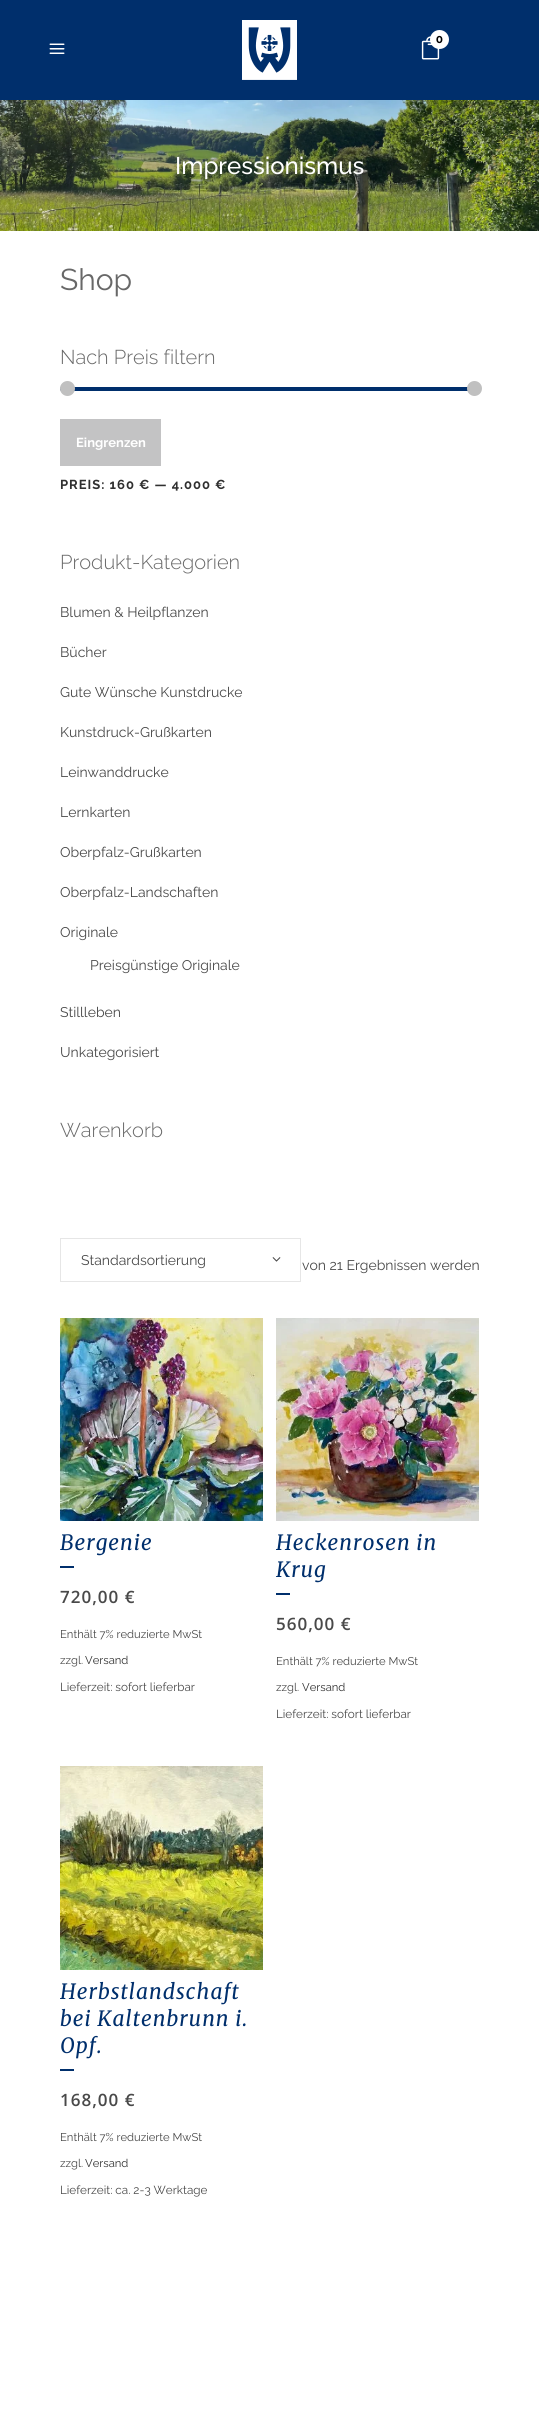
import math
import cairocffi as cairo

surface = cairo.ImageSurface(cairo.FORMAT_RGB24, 539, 2421)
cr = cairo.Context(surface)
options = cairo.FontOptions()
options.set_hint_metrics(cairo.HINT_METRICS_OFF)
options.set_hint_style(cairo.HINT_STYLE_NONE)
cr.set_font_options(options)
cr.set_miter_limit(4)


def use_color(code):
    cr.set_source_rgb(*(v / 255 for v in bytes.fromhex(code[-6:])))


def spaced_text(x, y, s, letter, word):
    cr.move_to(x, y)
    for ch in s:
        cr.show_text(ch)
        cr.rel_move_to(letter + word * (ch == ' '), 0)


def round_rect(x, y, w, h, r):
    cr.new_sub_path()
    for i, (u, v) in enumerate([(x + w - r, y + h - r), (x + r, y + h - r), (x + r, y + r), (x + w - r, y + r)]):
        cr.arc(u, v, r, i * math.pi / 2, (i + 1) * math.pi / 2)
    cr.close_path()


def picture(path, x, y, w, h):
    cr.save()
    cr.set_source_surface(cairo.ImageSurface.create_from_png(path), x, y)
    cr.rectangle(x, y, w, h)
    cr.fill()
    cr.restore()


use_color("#ffffff")
cr.paint()
use_color("#002f6c")
cr.rectangle(0, 0, 539, 100)
cr.fill()
picture("img1.png", 49, 43, 16, 11)
picture("img2.png", 242, 20, 55, 60)
picture("img3.png", 421, 36, 19, 24)
use_color("#ffffff")
cr.arc(439.5, 39.5, 9.5, 0, 2 * math.pi)
cr.fill()
cr.select_font_face("Montserrat", cairo.FONT_SLANT_NORMAL, cairo.FONT_WEIGHT_BOLD)
cr.set_font_size(10)
use_color("#000000")
cr.move_to(436, 43)
cr.show_text("0")
picture("img4.png", 0, 100, 539, 131)
cr.select_font_face("Raleway Medium")
cr.set_font_size(24)
use_color("#ffffff")
cr.move_to(175, 174)
cr.show_text("Impressionismus")
cr.select_font_face("Raleway")
cr.set_font_size(30)
use_color("#686868")
cr.move_to(60, 290)
cr.show_text("Shop")
cr.select_font_face("Raleway Light")
cr.set_font_size(20)
cr.move_to(60, 364)
cr.show_text("Nach Preis filtern")
use_color("#002f6c")
round_rect(60, 387, 420, 4, 2)
cr.fill()
use_color("#c0c0c0")
cr.arc(67.5, 388.5, 7.5, 0, 2 * math.pi)
cr.fill()
cr.arc(474.5, 388.5, 7.5, 0, 2 * math.pi)
cr.fill()
use_color("#c3c3c4")
cr.rectangle(60, 419, 101, 47)
cr.fill()
cr.select_font_face("Raleway", cairo.FONT_SLANT_NORMAL, cairo.FONT_WEIGHT_BOLD)
cr.set_font_size(13)
use_color("#ffffff")
cr.move_to(76, 447)
cr.show_text("Eingrenzen")
use_color("#303030")
spaced_text(60, 489, "PREIS: 160 € — 4.000 €", 1, 0)
cr.select_font_face("Raleway Light")
cr.set_font_size(20)
use_color("#686868")
cr.move_to(60, 569)
cr.show_text("Produkt-Kategorien")
cr.select_font_face("Raleway")
cr.set_font_size(14)
use_color("#494949")
cr.move_to(60, 617)
cr.show_text("Blumen & Heilpflanzen")
cr.move_to(60, 657)
cr.show_text("Bücher")
cr.move_to(60, 697)
cr.show_text("Gute Wünsche Kunstdrucke")
cr.move_to(60, 737)
cr.show_text("Kunstdruck-Grußkarten")
cr.move_to(60, 777)
cr.show_text("Leinwanddrucke")
cr.move_to(60, 817)
cr.show_text("Lernkarten")
cr.move_to(60, 857)
cr.show_text("Oberpfalz-Grußkarten")
cr.move_to(60, 897)
cr.show_text("Oberpfalz-Landschaften")
cr.move_to(60, 937)
cr.show_text("Originale")
cr.move_to(90, 970)
cr.show_text("Preisgünstige Originale")
cr.move_to(60, 1017)
cr.show_text("Stillleben")
cr.move_to(60, 1057)
cr.show_text("Unkategorisiert")
cr.select_font_face("Raleway Light")
cr.set_font_size(20)
use_color("#686868")
cr.move_to(60, 1137)
cr.show_text("Warenkorb")
cr.rectangle(60.5, 1238.5, 240, 43)
use_color("#e6e6e6")
cr.set_line_width(1)
cr.stroke()
cr.select_font_face("Raleway")
cr.set_font_size(14)
use_color("#494949")
cr.move_to(81, 1265)
cr.show_text("Standardsortierung")
picture("img5.png", 272, 1257, 9, 5)
cr.move_to(302, 1270)
cr.show_text("von 21 Ergebnissen werden")
picture("img6.png", 60, 1318, 203, 203)
cr.select_font_face("Merriweather", cairo.FONT_SLANT_ITALIC)
cr.set_font_size(21)
use_color("#002f6c")
spaced_text(60, 1550, "Bergenie", 1, 0)
cr.rectangle(60, 1566, 14, 2)
cr.fill()
cr.select_font_face("Open Sans SemiBold")
cr.set_font_size(17)
use_color("#494949")
spaced_text(60, 1603, "720,00 €", 1, 0)
cr.select_font_face("Raleway")
cr.set_font_size(11.25)
cr.move_to(60, 1638)
cr.show_text("Enthält 7% reduzierte MwSt")
cr.move_to(60, 1664)
cr.show_text("zzgl.")
use_color("#303030")
cr.move_to(85, 1664)
cr.show_text("Versand")
cr.set_font_size(11.7)
use_color("#494949")
cr.move_to(60, 1691)
cr.show_text("Lieferzeit: sofort lieferbar")
picture("img7.png", 276, 1318, 203, 203)
cr.select_font_face("Merriweather", cairo.FONT_SLANT_ITALIC)
cr.set_font_size(21)
use_color("#002f6c")
spaced_text(276, 1550, "Heckenrosen in", 1, 0)
spaced_text(276, 1577, "Krug", 1, 0)
cr.rectangle(276, 1593, 14, 2)
cr.fill()
cr.select_font_face("Open Sans SemiBold")
cr.set_font_size(17)
use_color("#494949")
spaced_text(276, 1630, "560,00 €", 1, 0)
cr.select_font_face("Raleway")
cr.set_font_size(11.25)
cr.move_to(276, 1665)
cr.show_text("Enthält 7% reduzierte MwSt")
cr.move_to(276, 1691)
cr.show_text("zzgl.")
use_color("#303030")
cr.move_to(302, 1691)
cr.show_text("Versand")
cr.set_font_size(11.7)
use_color("#494949")
cr.move_to(276, 1718)
cr.show_text("Lieferzeit: sofort lieferbar")
picture("img8.png", 60, 1766, 203, 204)
cr.select_font_face("Merriweather", cairo.FONT_SLANT_ITALIC)
cr.set_font_size(21)
use_color("#002f6c")
spaced_text(60, 1999, "Herbstlandschaft", 1, 0)
spaced_text(60, 2026, "bei Kaltenbrunn i.", 1, 0)
spaced_text(60, 2053, "Opf.", 1, 0)
cr.rectangle(60, 2069, 14, 2)
cr.fill()
cr.select_font_face("Open Sans SemiBold")
cr.set_font_size(17)
use_color("#494949")
spaced_text(60, 2106, "168,00 €", 1, 0)
cr.select_font_face("Raleway")
cr.set_font_size(11.25)
cr.move_to(60, 2141)
cr.show_text("Enthält 7% reduzierte MwSt")
cr.move_to(60, 2167)
cr.show_text("zzgl.")
use_color("#303030")
cr.move_to(85, 2167)
cr.show_text("Versand")
cr.set_font_size(11.7)
use_color("#494949")
cr.move_to(60, 2194)
cr.show_text("Lieferzeit: ca. 2-3 Werktage")
surface.write_to_png("result.png")
